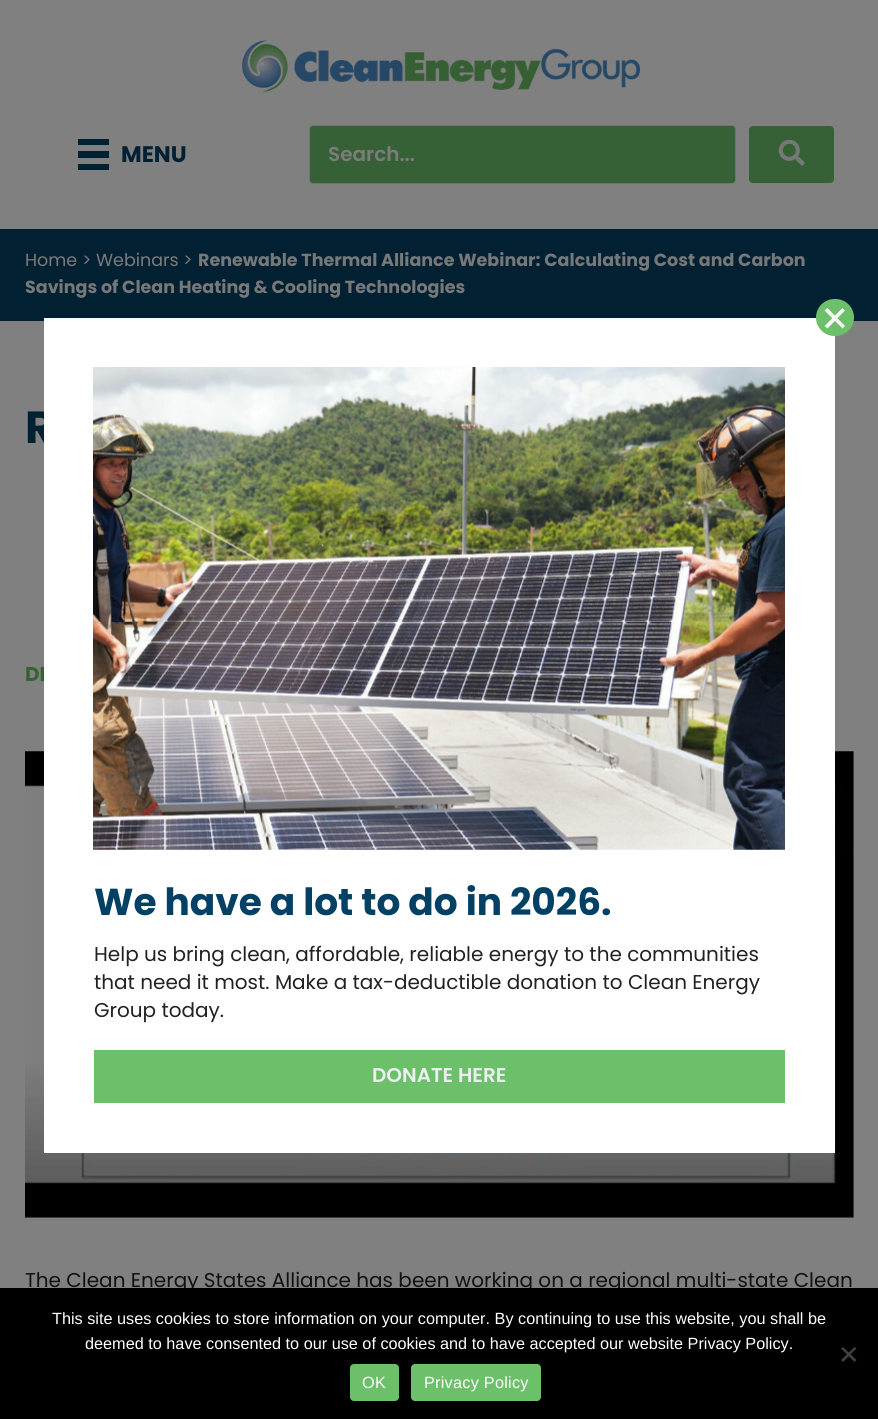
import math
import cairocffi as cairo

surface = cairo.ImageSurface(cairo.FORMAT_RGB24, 878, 1419)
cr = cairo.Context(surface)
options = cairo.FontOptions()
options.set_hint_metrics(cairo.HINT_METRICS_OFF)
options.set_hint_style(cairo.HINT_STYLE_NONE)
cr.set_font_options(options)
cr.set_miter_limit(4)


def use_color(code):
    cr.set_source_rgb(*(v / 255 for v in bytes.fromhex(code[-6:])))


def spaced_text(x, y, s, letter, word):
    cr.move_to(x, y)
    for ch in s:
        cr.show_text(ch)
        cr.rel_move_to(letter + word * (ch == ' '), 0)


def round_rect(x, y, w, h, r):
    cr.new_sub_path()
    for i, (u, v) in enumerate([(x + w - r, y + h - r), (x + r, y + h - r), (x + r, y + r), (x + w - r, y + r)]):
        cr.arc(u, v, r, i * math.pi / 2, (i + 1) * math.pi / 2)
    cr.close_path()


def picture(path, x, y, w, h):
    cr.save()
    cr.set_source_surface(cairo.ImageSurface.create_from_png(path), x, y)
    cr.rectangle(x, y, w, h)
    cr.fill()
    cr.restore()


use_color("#808080")
cr.paint()
use_color("#7d7d7d")
cr.rectangle(0, 228, 878, 1)
cr.fill()
picture("img1.png", 241, 40, 399, 53)
use_color("#012032")
cr.rectangle(78, 139, 31, 6)
cr.fill()
cr.rectangle(78, 151, 31, 7)
cr.fill()
cr.rectangle(78, 164, 31, 6)
cr.fill()
cr.select_font_face("Poppins", cairo.FONT_SLANT_NORMAL, cairo.FONT_WEIGHT_BOLD)
cr.set_font_size(22.5)
cr.move_to(121, 162)
cr.show_text("MENU")
use_color("#366035")
round_rect(309.5, 125.5, 426, 58, 3.5)
cr.fill_preserve()
use_color("#737373")
cr.set_line_width(1)
cr.stroke()
cr.select_font_face("Poppins SemiBold")
cr.set_font_size(20)
use_color("#7c7c7c")
cr.move_to(328, 161)
cr.show_text("Search...")
use_color("#366035")
round_rect(749, 126, 85, 57, 4)
cr.fill()
picture("img2.png", 778, 139, 27, 27)
use_color("#012032")
cr.rectangle(0, 229, 878, 92)
cr.fill()
cr.select_font_face("Poppins")
cr.set_font_size(17.5)
use_color("#7c7c7c")
cr.move_to(25, 266)
cr.show_text("Home")
use_color("#767879")
cr.move_to(82, 266)
cr.show_text(">")
use_color("#7c7c7c")
cr.move_to(96, 266)
cr.show_text("Webinars")
use_color("#767879")
cr.move_to(183, 266)
cr.show_text(">")
cr.select_font_face("Poppins", cairo.FONT_SLANT_NORMAL, cairo.FONT_WEIGHT_BOLD)
cr.move_to(198, 266)
cr.show_text("Renewable Thermal Alliance Webinar: Calculating Cost and Carbon")
cr.move_to(25, 293)
cr.show_text("Savings of Clean Heating & Cooling Technologies")
cr.set_font_size(45)
use_color("#012032")
cr.move_to(25, 443)
cr.show_text("R")
cr.set_font_size(20)
use_color("#366035")
cr.move_to(25, 681)
cr.show_text("DE")
picture("img3.png", 25, 751, 829, 467)
cr.select_font_face("Poppins")
use_color("#111111")
cr.move_to(25, 1287)
cr.show_text("The Clean Energy States Alliance has been working on a regional multi-state Clean")
use_color("#ffffff")
cr.rectangle(44, 318, 791, 835)
cr.fill()
use_color("#6cc069")
round_rect(816, 299, 38, 37, 18.5)
cr.fill()
use_color("#f8f8f8")
cr.new_path()
cr.move_to(842.5, 328.5)
cr.line_to(824.5, 310.5)
cr.line_to(827.5, 308)
cr.line_to(845, 326)
cr.close_path()
cr.fill()
cr.new_path()
cr.move_to(845, 310.5)
cr.line_to(827.5, 328.5)
cr.line_to(824.5, 326)
cr.line_to(842.5, 308)
cr.close_path()
cr.fill()
picture("img4.png", 93, 367, 692, 483)
cr.select_font_face("Poppins", cairo.FONT_SLANT_NORMAL, cairo.FONT_WEIGHT_BOLD)
cr.set_font_size(37.5)
use_color("#024064")
cr.move_to(94, 915)
cr.show_text("We have a lot to do in 2026.")
cr.select_font_face("Poppins")
cr.set_font_size(20)
use_color("#212121")
cr.move_to(94, 961)
cr.show_text("Help us bring clean, affordable, reliable energy to the communities")
cr.move_to(94, 989)
cr.show_text("that need it most. Make a tax-deductible donation to Clean Energy")
cr.move_to(94, 1017)
cr.show_text("Group today.")
use_color("#6cc069")
cr.rectangle(94, 1050, 691, 53)
cr.fill()
cr.select_font_face("Poppins SemiBold")
use_color("#ecf0f1")
cr.move_to(372, 1082)
cr.show_text("DONATE HERE")
use_color("#000000")
cr.rectangle(0, 1288, 878, 131)
cr.fill()
cr.select_font_face("Liberation Sans")
cr.set_font_size(16.25)
use_color("#ffffff")
cr.move_to(52, 1324)
cr.show_text("This site uses cookies to store information on your computer. By continuing to use this website, you shall be")
cr.move_to(85, 1349)
cr.show_text("deemed to have consented to our use of cookies and to have accepted our website Privacy Policy.")
use_color("#404040")
cr.new_path()
cr.move_to(854.5, 1347)
cr.line_to(856.5, 1348.5)
cr.line_to(843, 1362)
cr.line_to(841, 1360)
cr.close_path()
cr.fill()
cr.new_path()
cr.move_to(841, 1348.5)
cr.line_to(843, 1347)
cr.line_to(856.5, 1360)
cr.line_to(854.5, 1362)
cr.close_path()
cr.fill()
use_color("#6cc069")
round_rect(350, 1364, 49, 37, 4)
cr.fill()
use_color("#ffffff")
spaced_text(362, 1388, "OK", 0.25, 0)
use_color("#6cc069")
round_rect(411, 1364, 130, 37, 4)
cr.fill()
use_color("#ffffff")
spaced_text(424, 1388, "Privacy Policy", 0.25, 0)
surface.write_to_png("result.png")
